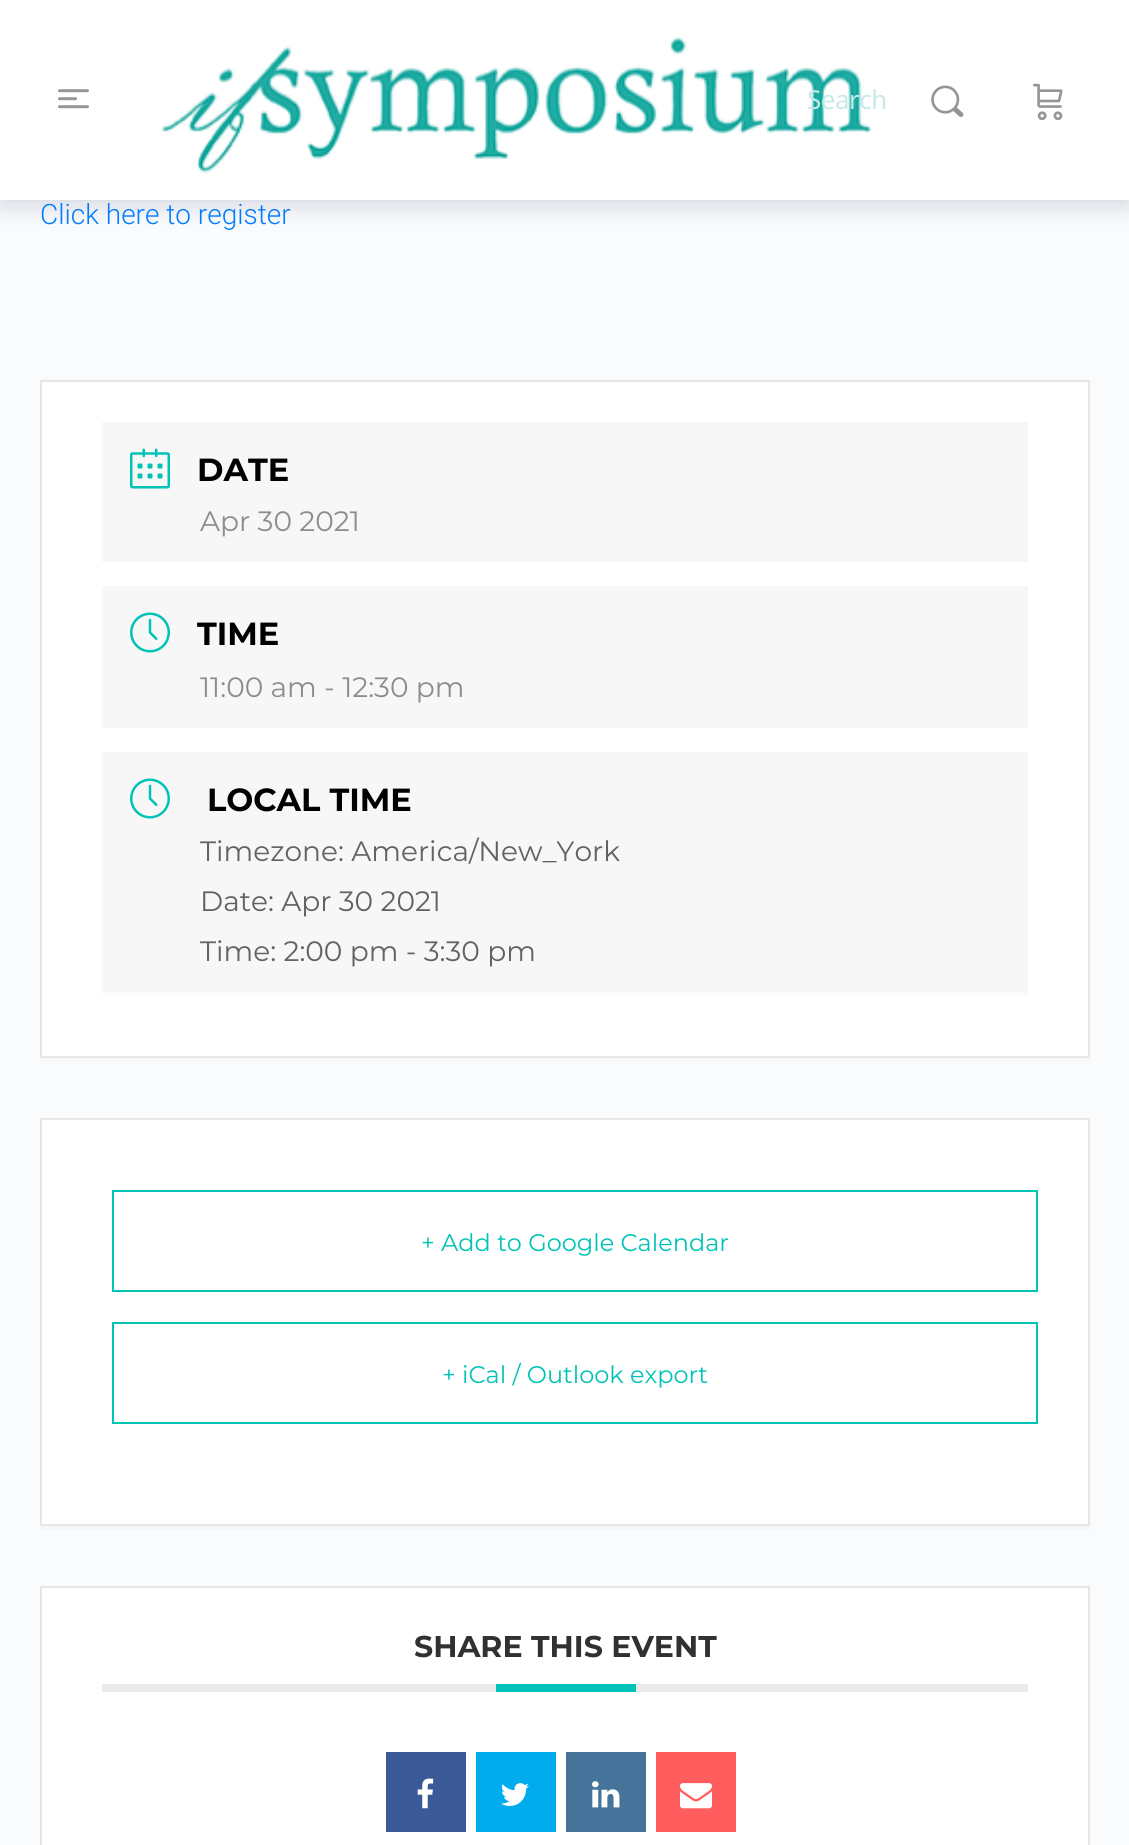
import math
import cairocffi as cairo

surface = cairo.ImageSurface(cairo.FORMAT_RGB24, 1129, 1845)
cr = cairo.Context(surface)
options = cairo.FontOptions()
options.set_hint_metrics(cairo.HINT_METRICS_OFF)
options.set_hint_style(cairo.HINT_STYLE_NONE)
cr.set_font_options(options)
cr.set_miter_limit(4)


def use_color(code):
    cr.set_source_rgb(*(v / 255 for v in bytes.fromhex(code[-6:])))


def spaced_text(x, y, s, letter, word):
    cr.move_to(x, y)
    for ch in s:
        cr.show_text(ch)
        cr.rel_move_to(letter + word * (ch == ' '), 0)


def round_rect(x, y, w, h, r):
    cr.new_sub_path()
    for i, (u, v) in enumerate([(x + w - r, y + h - r), (x + r, y + h - r), (x + r, y + r), (x + w - r, y + r)]):
        cr.arc(u, v, r, i * math.pi / 2, (i + 1) * math.pi / 2)
    cr.close_path()


def shadow(x, y, w, h, r, blur, alpha):
    cr.push_group_with_content(cairo.CONTENT_ALPHA)
    cr.set_operator(cairo.OPERATOR_SOURCE)
    for i in range(15, -16, -2):
        e = blur * i / 6
        if min(w, h) + 2 * e > 0:
            cr.set_source_rgba(0, 0, 0, alpha * math.erfc((i - 1) / 8.5) / 2)
            round_rect(x - e, y - e, w + 2 * e, h + 2 * e, max(0, min(r + e + blur * .6, min(w, h) / 2 + e)))
            cr.fill()
    cr.mask(cr.pop_group())


def picture(path, x, y, w, h):
    cr.save()
    cr.set_source_surface(cairo.ImageSurface.create_from_png(path), x, y)
    cr.rectangle(x, y, w, h)
    cr.fill()
    cr.restore()


use_color("#fafbfd")
cr.paint()
use_color("#41476c")
shadow(0, 10, 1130, 200, 0, 10, 0.15)
cr.set_source_rgba(0.545, 0.553, 0.616, 0.05)
cr.rectangle(0, 200, 1129, 2)
cr.fill()
use_color("#ffffff")
cr.rectangle(0, 0, 1129, 200)
cr.fill()
picture("img1.png", 58, 89, 31, 20)
picture("img2.png", 161, 36, 711, 138)
cr.select_font_face("Noto Sans")
cr.set_font_size(26)
use_color("#c7eae8")
spaced_text(807, 109, "Search", -0.5, 0)
picture("img3.png", 931, 85, 33, 32)
picture("img4.png", 1033, 83, 30, 38)
cr.select_font_face("Roboto Light")
cr.set_font_size(28)
use_color("#007cff")
cr.move_to(40, 224)
cr.show_text("Click here to register")
use_color("#f6f7f9")
cr.rectangle(40, 1058, 1050, 4)
cr.fill()
use_color("#ffffff")
cr.rectangle(41, 381, 1048, 676)
cr.fill_preserve()
use_color("#e6e6e6")
cr.stroke()
use_color("#f7f7f7")
cr.rectangle(102, 422, 926, 140)
cr.fill()
picture("img5.png", 130, 448, 40, 41)
cr.select_font_face("Montserrat", cairo.FONT_SLANT_NORMAL, cairo.FONT_WEIGHT_BOLD)
cr.set_font_size(32)
use_color("#000000")
cr.move_to(197, 481)
cr.show_text("DATE")
cr.select_font_face("Montserrat")
cr.set_font_size(28)
use_color("#8d8d8d")
cr.move_to(200, 531)
cr.show_text("Apr 30 2021")
use_color("#f7f7f7")
cr.rectangle(102, 586, 926, 142)
cr.fill()
picture("img6.png", 130, 612, 40, 41)
cr.select_font_face("Montserrat", cairo.FONT_SLANT_NORMAL, cairo.FONT_WEIGHT_BOLD)
cr.set_font_size(32)
use_color("#000000")
cr.move_to(197, 645)
cr.show_text("TIME")
cr.select_font_face("Montserrat")
cr.set_font_size(28)
use_color("#8d8d8d")
cr.move_to(200, 697)
cr.show_text("11:00 am - 12:30 pm")
use_color("#fbfbfb")
cr.rectangle(102, 992, 926, 4)
cr.fill()
use_color("#f7f7f7")
cr.rectangle(102, 752, 926, 240)
cr.fill()
picture("img6.png", 130, 778, 40, 41)
cr.select_font_face("Montserrat", cairo.FONT_SLANT_NORMAL, cairo.FONT_WEIGHT_BOLD)
cr.set_font_size(32)
use_color("#000000")
cr.move_to(207, 811)
cr.show_text("LOCAL TIME")
cr.select_font_face("Montserrat")
cr.set_font_size(28)
use_color("#626262")
cr.move_to(200, 861)
cr.show_text("Timezone: America/New_York")
cr.move_to(200, 911)
cr.show_text("Date: Apr 30 2021")
cr.move_to(200, 961)
cr.show_text("Time: 2:00 pm - 3:30 pm")
use_color("#f6f7f9")
cr.rectangle(40, 1526, 1050, 4)
cr.fill()
use_color("#ffffff")
cr.rectangle(41, 1119, 1048, 406)
cr.fill_preserve()
use_color("#e6e6e6")
cr.stroke()
cr.rectangle(113, 1191, 924, 100)
use_color("#00c3b6")
cr.stroke()
cr.set_font_size(24)
cr.move_to(421, 1251)
cr.show_text("+ Add to Google Calendar")
cr.rectangle(113, 1323, 924, 100)
cr.stroke()
cr.move_to(442, 1383)
cr.show_text("+ iCal / Outlook export")
use_color("#ffffff")
cr.rectangle(41, 1587, 1048, 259)
cr.fill_preserve()
use_color("#e6e6e6")
cr.stroke()
use_color("#ebebeb")
cr.rectangle(102, 1684, 926, 8)
cr.fill()
cr.select_font_face("Montserrat", cairo.FONT_SLANT_NORMAL, cairo.FONT_WEIGHT_BOLD)
cr.set_font_size(30)
use_color("#313131")
cr.move_to(414, 1657)
cr.show_text("SHARE THIS EVENT")
use_color("#00c3b6")
cr.rectangle(496, 1684, 140, 8)
cr.fill()
use_color("#3b5996")
cr.rectangle(386, 1752, 80, 80)
cr.fill()
picture("img7.png", 417, 1778, 17, 31)
use_color("#00acee")
cr.rectangle(476, 1752, 80, 80)
cr.fill()
picture("img8.png", 501, 1783, 28, 23)
use_color("#457399")
cr.rectangle(566, 1752, 80, 80)
cr.fill()
picture("img9.png", 592, 1781, 28, 27)
use_color("#ff5d5e")
cr.rectangle(656, 1752, 80, 80)
cr.fill()
picture("img10.png", 680, 1783, 32, 26)
surface.write_to_png("result.png")
